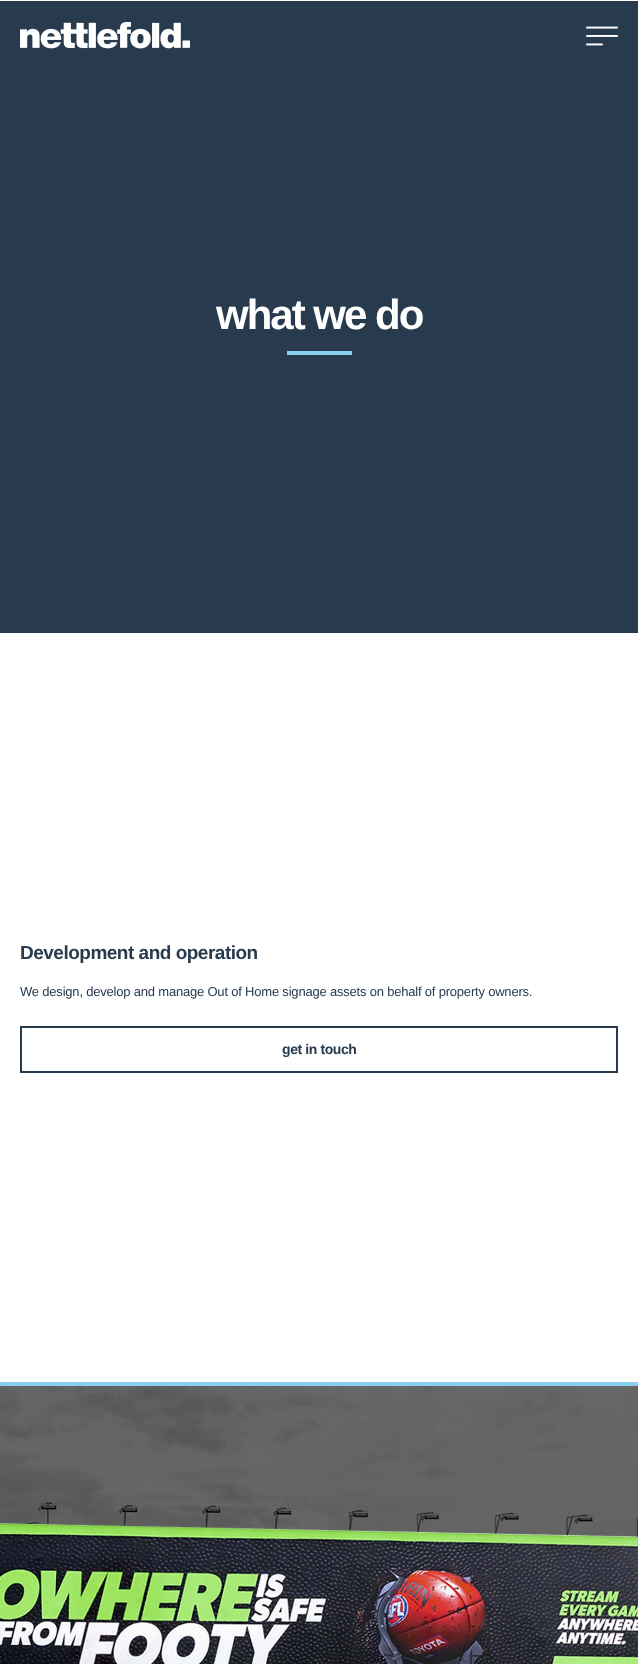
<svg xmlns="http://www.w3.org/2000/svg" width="638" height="1664">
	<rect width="100%" height="100%" fill="#FFFFFF" />
	<rect x="0" y="1" width="638" height="632" fill="#283A4E" />
	<image x="20" y="22" width="170" height="27" href="assets/img1.png" />
	<image x="586" y="26" width="32" height="20" href="assets/img2.png" />
	<text x="216" y="329" font-family="Liberation Sans" font-size="42" font-weight="700" letter-spacing="-2" fill="#FFFFFF">what we do</text>
	<rect x="287" y="351" width="65" height="4" fill="#89CFF0" />
	<text x="20" y="959" font-family="Liberation Sans" font-size="19" font-weight="700" letter-spacing="-0.5" fill="#283A4E">Development and operation</text>
	<text x="20" y="996" font-family="Liberation Sans" font-size="13" letter-spacing="-0.2" fill="#283A4E">We design, develop and manage Out of Home signage assets on behalf of property owners.</text>
	<rect x="21" y="1027" width="596" height="45" fill="none" stroke="#283A4E" stroke-width="2" />
	<text x="282" y="1054" font-family="Liberation Sans" font-size="14" font-weight="700" letter-spacing="-0.4" fill="#283A4E">get in touch</text>
	<image x="0" y="1386" width="638" height="278" href="assets/img3.png" />
	<rect x="0" y="1382" width="638" height="4" fill="#89CFF0" />
</svg>
